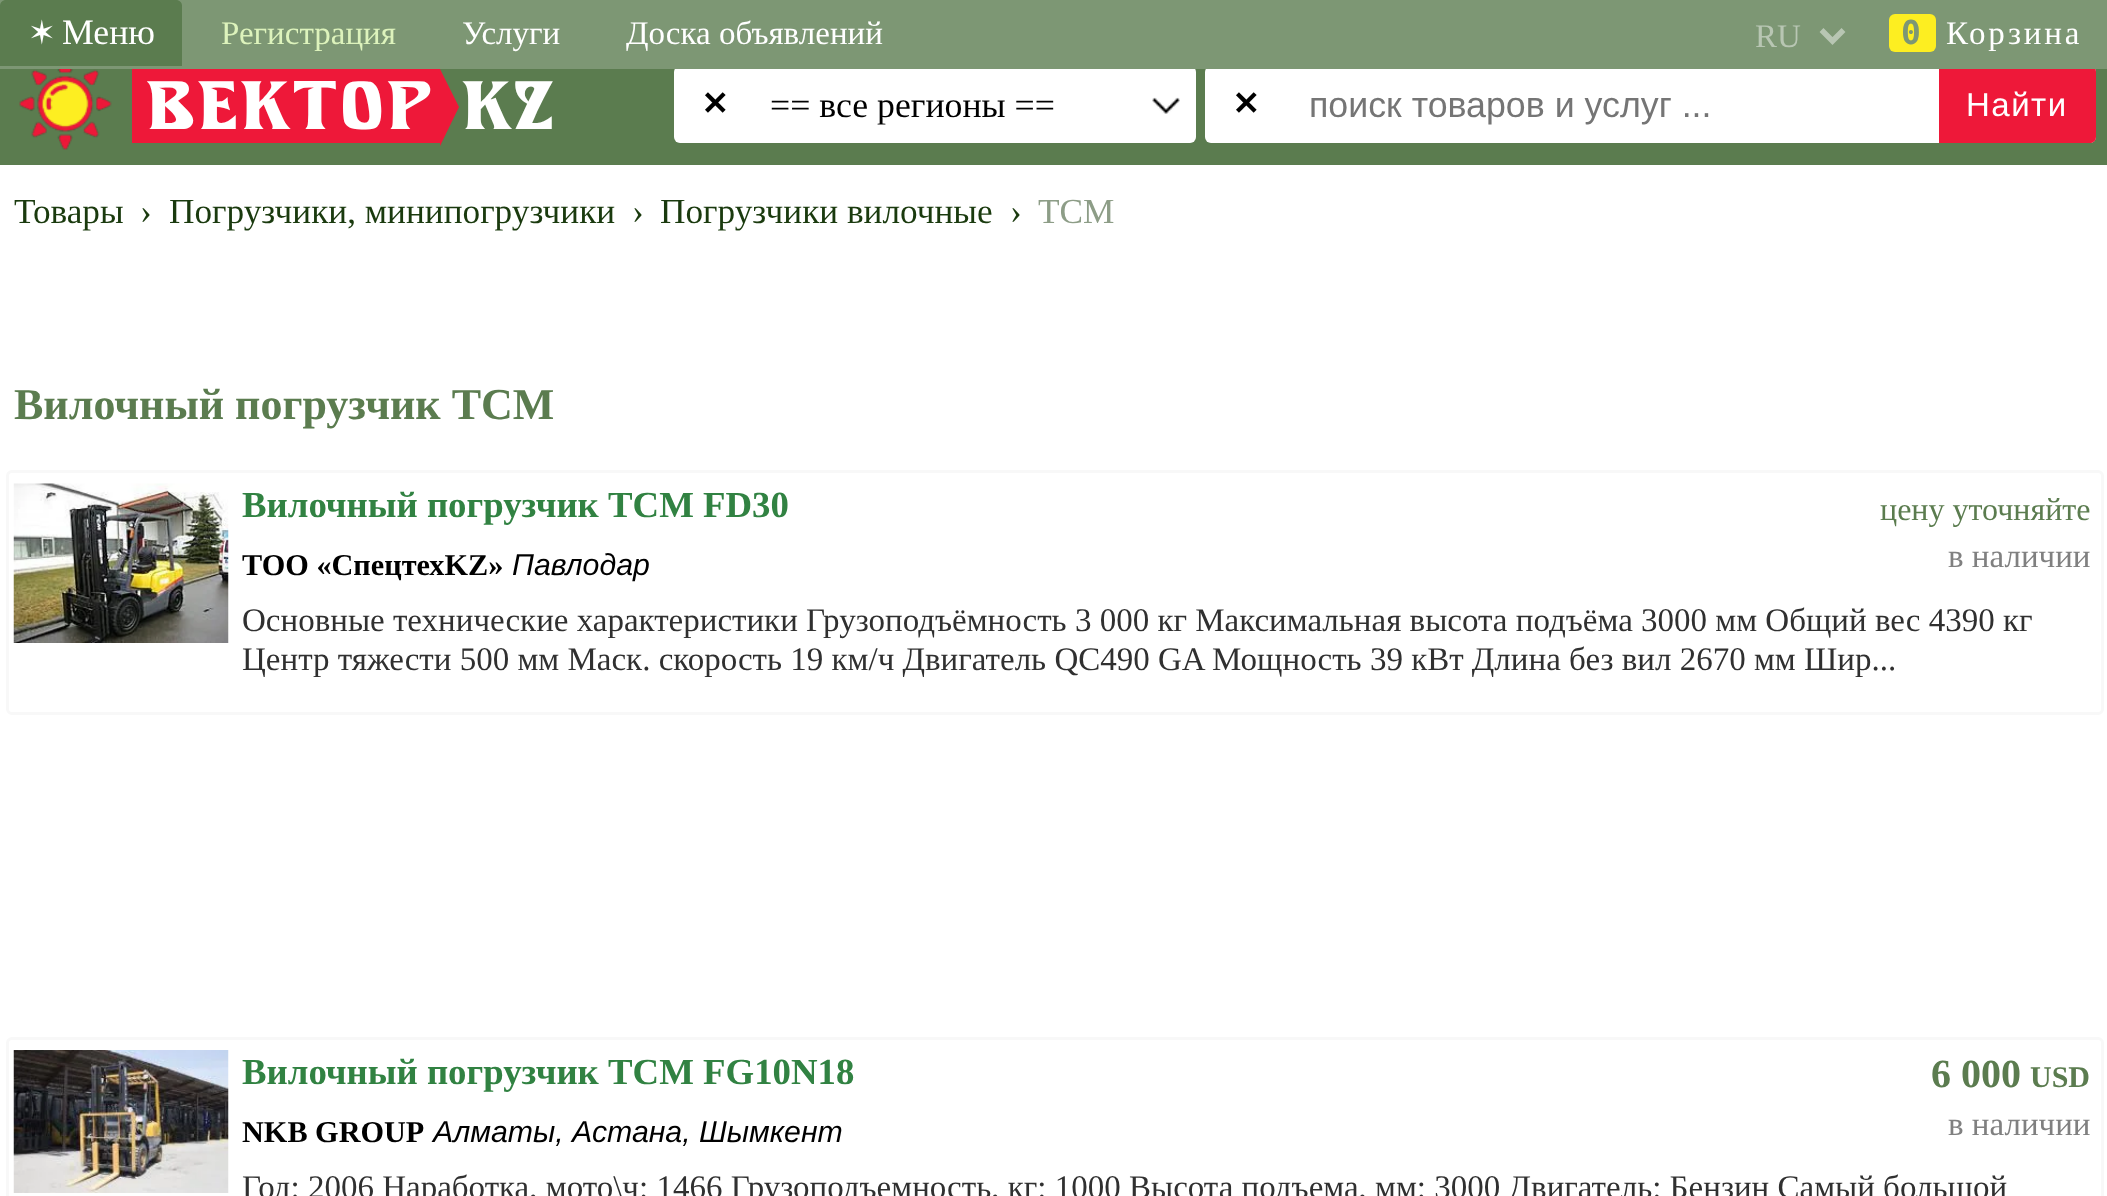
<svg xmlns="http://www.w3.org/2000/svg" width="2107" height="1196">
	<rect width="100%" height="100%" fill="#FFFFFF" />
	<rect x="0" y="69" width="2107" height="96" fill="#5B7C4F" />
	<rect x="674" y="66" width="522" height="77" rx="6" fill="#FFFFFF" />
	<rect x="1205" y="66" width="891" height="77" rx="6" fill="#FFFFFF" />
	<path d="M1939 66H2090C2093.5 66 2096 68.5 2096 72V137C2096 140.5 2093.5 143 2090 143H1939Z" fill="#EE1839" />
	<rect x="0" y="0" width="2107" height="69" fill="#7D9774" />
	<path d="M6 0H176C179.5 0 182 2.5 182 6V66H0V6C0 2.5 2.5 0 6 0Z" fill="#5B7C4F" />
	<text x="28" y="44" font-family="DejaVu Sans" font-size="33" fill="#FFFFFF">✶</text>
	<text x="62" y="44" font-family="Liberation Serif" font-size="35.75" fill="#FFFFFF">Меню</text>
	<text x="221" y="44" font-family="Liberation Serif" font-size="33" fill="#DDF3BC">Регистрация</text>
	<g font-family="Liberation Serif" font-size="33" fill="#FFFFFF">
		<text x="462" y="44">Услуги</text>
		<text x="626" y="44">Доска объявлений</text>
	</g>
	<path d="M1821.5 30L1832.5 41L1843.5 30" fill="none" stroke="#B8C6B3" stroke-width="5.5" />
	<text x="1755" y="47" font-family="Liberation Serif" font-size="33" fill="#B8C6B3">RU</text>
	<rect x="1889" y="14" width="47" height="38" rx="6" fill="#FDEE21" />
	<text x="1901" y="44" font-family="DejaVu Sans Mono" font-size="33" font-weight="700" letter-spacing="2.75" fill="#7D9774">0</text>
	<text x="1946" y="44" font-family="Liberation Serif" font-size="33" letter-spacing="2.75" fill="#FFFFFF">Корзина</text>
	<image x="19" y="69" width="93" height="81" href="assets/img1.png" />
	<rect x="132" y="69" width="308" height="74" fill="#EE1839" />
	<text x="146" y="129" font-family="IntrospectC" font-size="71.5" letter-spacing="2.75" fill="#FFFFFF">ВЕКТОР</text>
	<path d="M440 146V69L459 107Z" fill="#EE1839" />
	<text x="462" y="129" font-family="IntrospectC" font-size="71.5" letter-spacing="2.75" fill="#FFFFFF">KZ</text>
	<text x="701" y="115" font-family="DejaVu Sans" font-size="33" font-weight="700" fill="#000000">✕</text>
	<image x="1152" y="97" width="28" height="17" href="assets/img2.png" />
	<text x="770" y="117" font-family="Liberation Serif" font-size="35.75" fill="#000000">== все регионы ==</text>
	<text x="1232" y="115" font-family="DejaVu Sans" font-size="33" font-weight="700" fill="#000000">✕</text>
	<text x="1309" y="117" font-family="Liberation Sans" font-size="35.75" fill="#757575">поиск товаров и услуг ...</text>
	<text x="1966" y="116" font-family="Liberation Sans" font-size="33" letter-spacing="1.5" fill="#FFFFFF">Найти</text>
	<g font-family="Liberation Serif" font-size="35.25" fill="#1A3A0E">
		<text x="14" y="223">Товары</text>
		<text x="140" y="223">›</text>
		<text x="169" y="223">Погрузчики, минипогрузчики</text>
		<text x="632" y="223">›</text>
		<text x="660" y="223">Погрузчики вилочные</text>
		<text x="1010" y="223">›</text>
	</g>
	<text x="1038" y="223" font-family="Liberation Serif" font-size="35.25" fill="#8D9D87">TCM</text>
	<text x="14" y="419" font-family="Liberation Serif" font-size="44" font-weight="700" fill="#5B7C4F">Вилочный погрузчик TCM</text>
	<rect x="7.5" y="471.5" width="2095" height="242" rx="4.5" fill="none" stroke="#F8F8F8" stroke-width="3" />
	<image x="13" y="483" width="216" height="160" href="assets/img3.png" />
	<text x="242" y="517" font-family="Liberation Serif" font-size="36.8" font-weight="700" fill="#318242">Вилочный погрузчик ТСМ FD30</text>
	<text x="1880" y="520" font-family="Liberation Serif" font-size="32" fill="#5B7C4F">цену уточняйте</text>
	<text x="1948" y="567" font-family="Liberation Serif" font-size="33" fill="#808080">в наличии</text>
	<text x="242" y="575" font-family="Liberation Serif" font-size="30.25" font-weight="700" fill="#000000">ТОО «СпецтехKZ»</text>
	<text x="512" y="575" font-family="Liberation Sans" font-size="30.25" font-style="italic" fill="#000000">Павлодар</text>
	<g font-family="Liberation Serif" font-size="33" fill="#303030">
		<text x="242" y="631">Основные технические характеристики Грузоподъёмность 3 000 кг Максимальная высота подъёма 3000 мм Общий вес 4390 кг</text>
		<text x="242" y="670">Центр тяжести 500 мм Маск. скорость 19 км/ч Двигатель QC490 GA Мощность 39 кВт Длина без вил 2670 мм Шир...</text>
	</g>
	<rect x="7.5" y="1038.5" width="2095" height="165" rx="4.5" fill="none" stroke="#F8F8F8" stroke-width="3" />
	<image x="13" y="1050" width="216" height="143" href="assets/img4.png" />
	<text x="242" y="1084" font-family="Liberation Serif" font-size="36.8" font-weight="700" fill="#318242">Вилочный погрузчик TCM FG10N18</text>
	<text x="1931" y="1087" font-family="Liberation Serif" font-size="40" font-weight="700" fill="#5B7C4F">6 000</text>
	<text x="2030" y="1087" font-family="Liberation Serif" font-size="30" font-weight="700" fill="#5B7C4F">USD</text>
	<text x="1948" y="1135" font-family="Liberation Serif" font-size="33" fill="#808080">в наличии</text>
	<text x="242" y="1142" font-family="Liberation Serif" font-size="30.25" font-weight="700" fill="#000000">NKB GROUP</text>
	<text x="433" y="1142" font-family="Liberation Sans" font-size="30.25" font-style="italic" fill="#000000">Алматы, Астана, Шымкент</text>
	<text x="242" y="1198" font-family="Liberation Serif" font-size="33" fill="#303030">Год: 2006 Наработка, мото\ч: 1466 Грузоподъемность, кг: 1000 Высота подъема, мм: 3000 Двигатель: Бензин Самый большой</text>
</svg>
